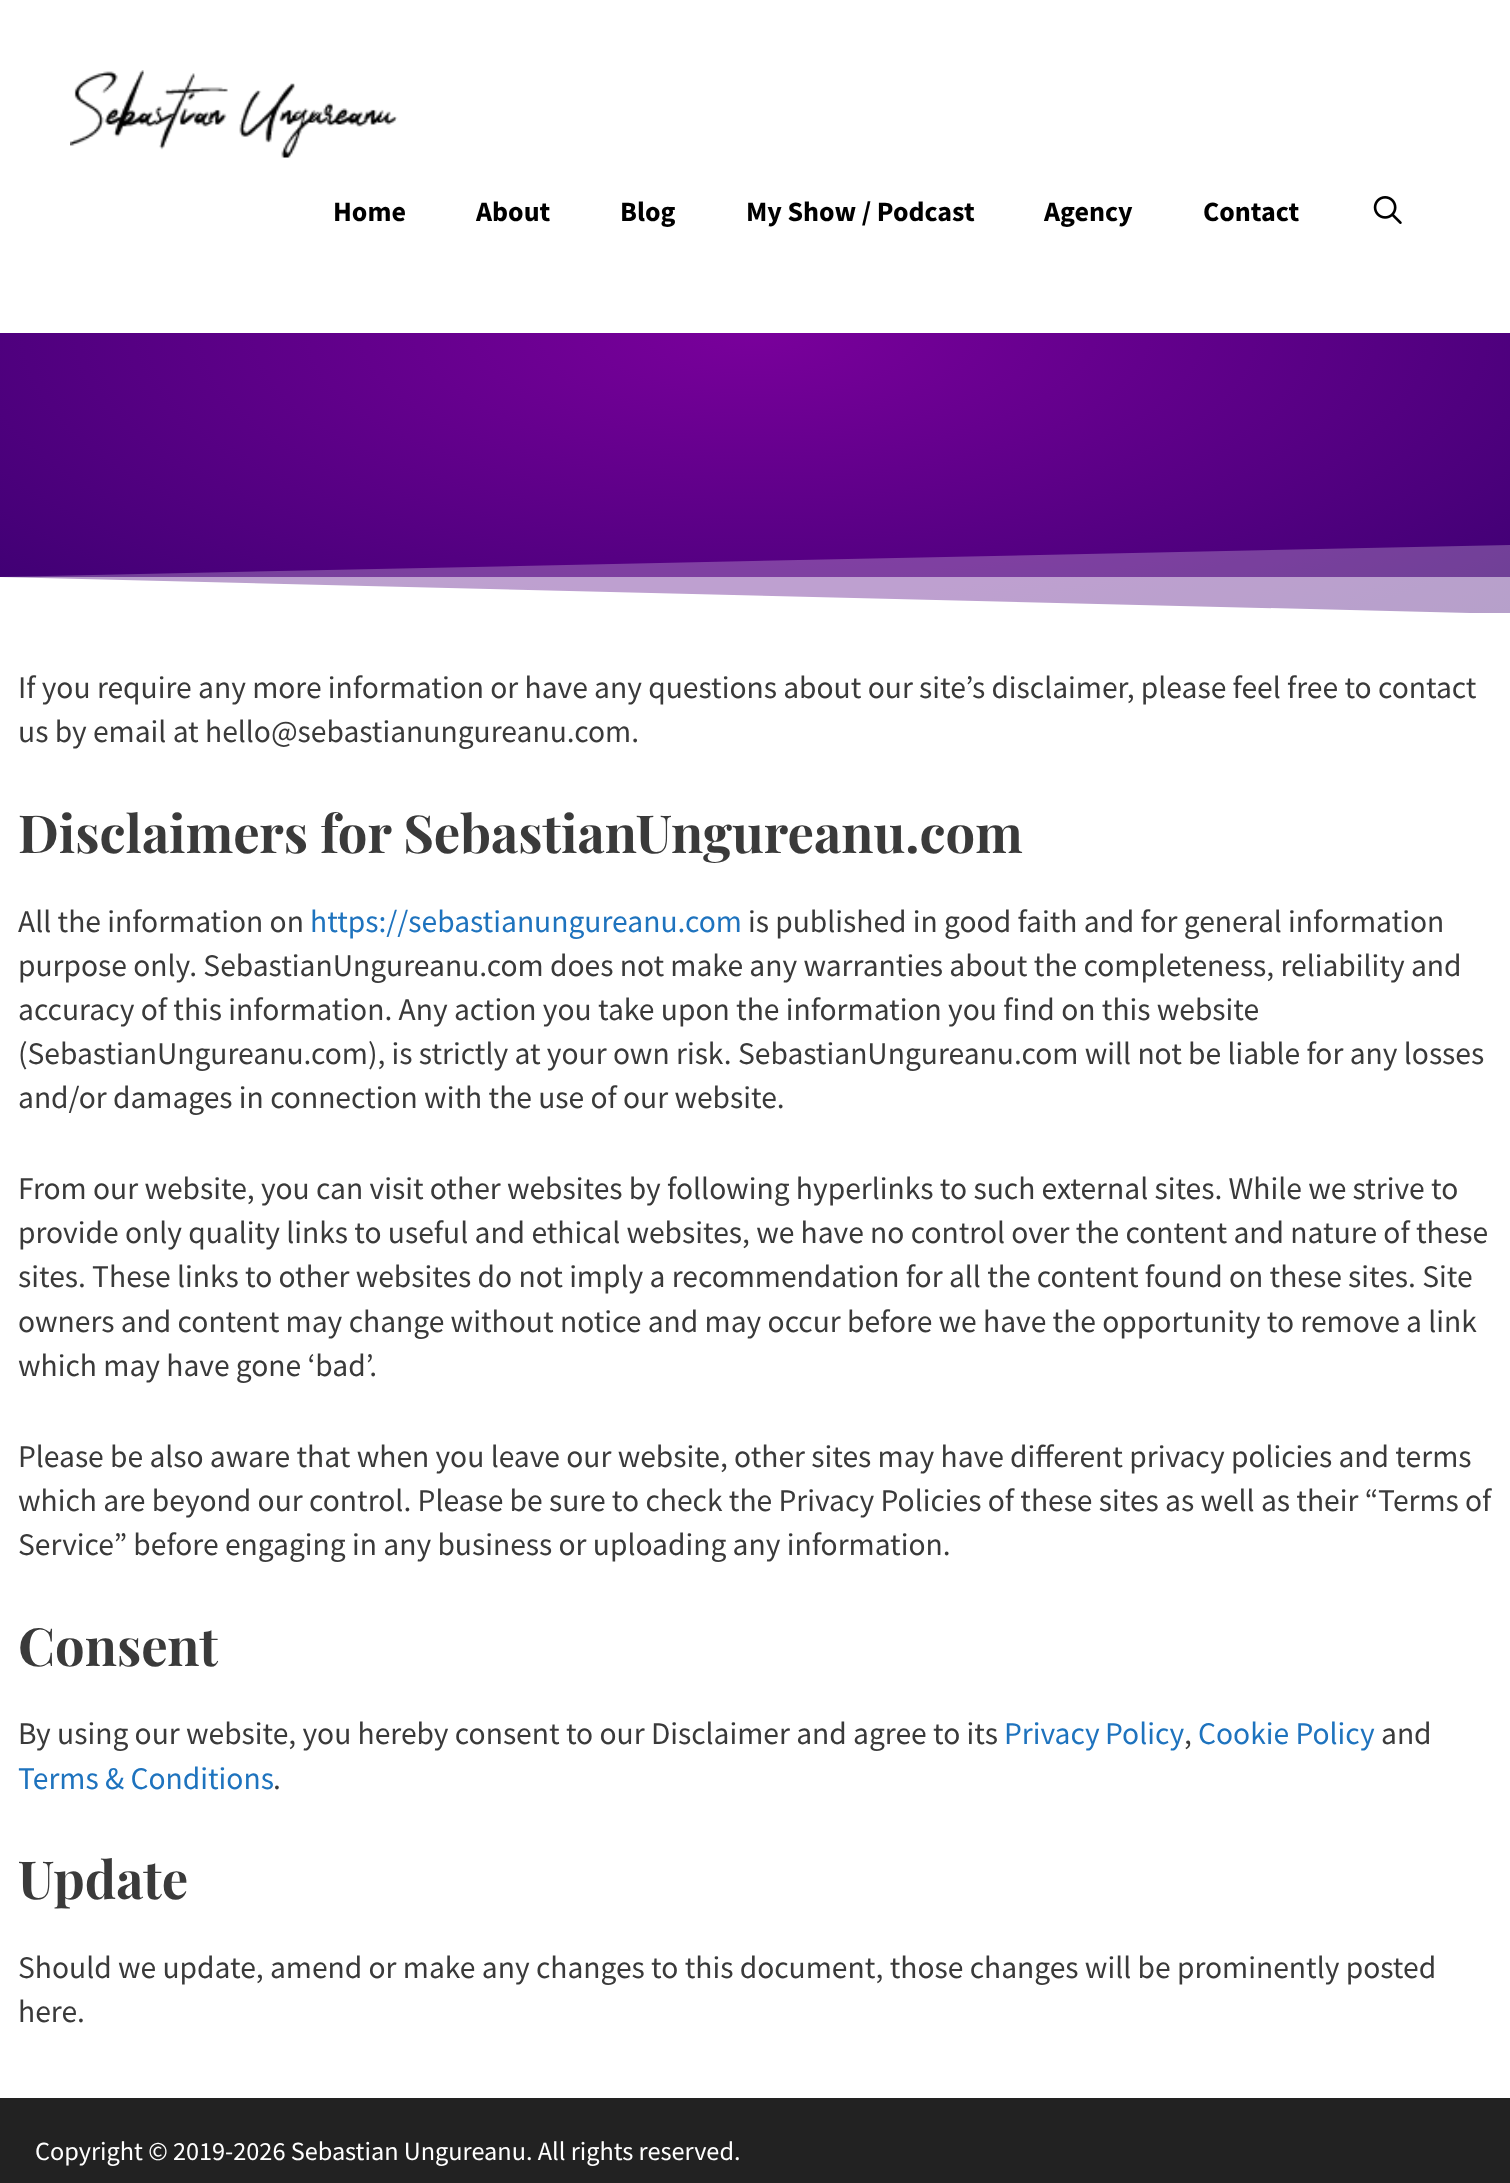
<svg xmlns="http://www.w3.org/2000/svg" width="1510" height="2183">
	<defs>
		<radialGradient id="g1" gradientUnits="userSpaceOnUse" cx="0" cy="0" r="1" gradientTransform="matrix(1068 0 0 396 755 333)"><stop offset="0" stop-color="#79009B" /><stop offset="1" stop-color="#3D0072" /></radialGradient>
		<radialGradient id="g2" gradientUnits="userSpaceOnUse" cx="0" cy="0" r="1" gradientTransform="matrix(1068 0 0 396 755 333)"><stop offset="0" stop-color="#BC80CD" /><stop offset="1" stop-color="#9E80B9" /></radialGradient>
	</defs>
	<rect width="100%" height="100%" fill="#FFFFFF" />
	<image x="70" y="70" width="328" height="88" href="assets/img1.png" />
	<g font-family="Source Sans Pro" font-size="28" font-weight="700" fill="#000000">
		<text x="333" y="221">Home</text>
		<text x="476" y="221">About</text>
		<text x="620" y="221">Blog</text>
		<text x="746" y="221">My Show / Podcast</text>
		<text x="1044" y="221">Agency</text>
		<text x="1203" y="221">Contact</text>
	</g>
	<image x="1373" y="196" width="29" height="28" href="assets/img2.png" />
	<rect x="0" y="333" width="1510" height="244" fill="url(#g1)" />
	<rect x="0" y="577" width="1510" height="36" fill="url(#g2)" />
	<path d="M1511 614H-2V577Z" fill="#FFFFFF" />
	<path d="M-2 614H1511V545L-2 577Z" fill="#FFFFFF" fill-opacity="0.25" />
	<g font-family="Source Sans Pro" font-size="31.5" fill="#3A3A3A">
		<text x="18" y="698">If you require any more information or have any questions about our site’s disclaimer, please feel free to contact</text>
		<text x="18" y="742">us by email at hello@sebastianungureanu.com.</text>
	</g>
	<text x="18" y="853" font-family="Playfair Display" font-size="52.5" font-weight="700" fill="#3A3A3A">Disclaimers for SebastianUngureanu.com</text>
	<text x="18" y="932" font-family="Source Sans Pro" font-size="31.5" fill="#3A3A3A">All the information on</text>
	<text x="310" y="932" font-family="Source Sans Pro" font-size="31.5" fill="#1E73BE">https://sebastianungureanu.com</text>
	<g font-family="Source Sans Pro" font-size="31.5" fill="#3A3A3A">
		<text x="748" y="932">is published in good faith and for general information</text>
		<text x="18" y="976">purpose only. SebastianUngureanu.com does not make any warranties about the completeness, reliability and</text>
		<text x="18" y="1020">accuracy of this information. Any action you take upon the information you find on this website</text>
		<text x="18" y="1064">(SebastianUngureanu.com), is strictly at your own risk. SebastianUngureanu.com will not be liable for any losses</text>
		<text x="18" y="1108">and/or damages in connection with the use of our website.</text>
		<text x="18" y="1199">From our website, you can visit other websites by following hyperlinks to such external sites. While we strive to</text>
		<text x="18" y="1243">provide only quality links to useful and ethical websites, we have no control over the content and nature of these</text>
		<text x="18" y="1287">sites. These links to other websites do not imply a recommendation for all the content found on these sites. Site</text>
		<text x="18" y="1332">owners and content may change without notice and may occur before we have the opportunity to remove a link</text>
		<text x="18" y="1376">which may have gone ‘bad’.</text>
		<text x="18" y="1467">Please be also aware that when you leave our website, other sites may have different privacy policies and terms</text>
		<text x="18" y="1511">which are beyond our control. Please be sure to check the Privacy Policies of these sites as well as their “Terms of</text>
		<text x="18" y="1555">Service” before engaging in any business or uploading any information.</text>
	</g>
	<text x="18" y="1666" font-family="Playfair Display" font-size="52.5" font-weight="700" fill="#3A3A3A">Consent</text>
	<text x="18" y="1744" font-family="Source Sans Pro" font-size="31.5" fill="#3A3A3A">By using our website, you hereby consent to our Disclaimer and agree to its</text>
	<text x="1004" y="1744" word-spacing="-1" font-family="Source Sans Pro" font-size="31.5" fill="#1E73BE">Privacy Policy</text>
	<text x="1184" y="1744" font-family="Source Sans Pro" font-size="31.5" fill="#3A3A3A">,</text>
	<text x="1198" y="1744" font-family="Source Sans Pro" font-size="31.5" fill="#1E73BE">Cookie Policy</text>
	<text x="1381" y="1744" font-family="Source Sans Pro" font-size="31.5" fill="#3A3A3A">and</text>
	<text x="18" y="1789" font-family="Source Sans Pro" font-size="31.5" fill="#1E73BE">Terms &amp; Conditions</text>
	<text x="273" y="1789" font-family="Source Sans Pro" font-size="31.5" fill="#3A3A3A">.</text>
	<text x="18" y="1899" font-family="Playfair Display" font-size="52.5" font-weight="700" fill="#3A3A3A">Update</text>
	<g font-family="Source Sans Pro" font-size="31.5" fill="#3A3A3A">
		<text x="18" y="1978">Should we update, amend or make any changes to this document, those changes will be prominently posted</text>
		<text x="18" y="2022">here.</text>
	</g>
	<rect x="0" y="2098" width="1510" height="85" fill="#222222" />
	<text x="35" y="2160" font-family="Source Sans Pro" font-size="26.25" fill="#FFFFFF">Copyright © 2019-2026 Sebastian Ungureanu. All rights reserved.</text>
</svg>
